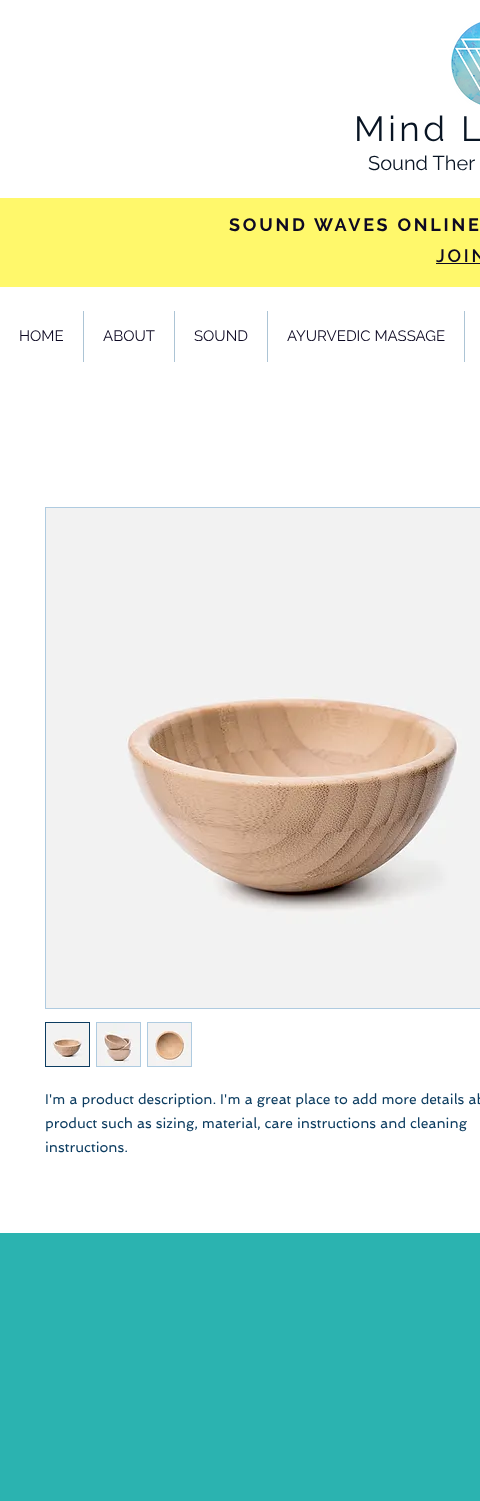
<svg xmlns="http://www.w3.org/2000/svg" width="480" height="1501">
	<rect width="100%" height="100%" fill="#FFFFFF" />
	<image x="451" y="22" width="29" height="83" href="assets/img1.png" />
	<text x="354" y="141" font-family="Raleway" font-size="35" letter-spacing="3.5" fill="#081423">Mind L</text>
	<text x="368" y="170" font-family="Raleway" font-size="20" fill="#081423">Sound Ther</text>
	<rect x="0" y="198" width="480" height="89" fill="#FFF86B" />
	<text x="229" y="231" font-family="Raleway" font-size="18" font-weight="700" letter-spacing="2.75" fill="#0D0923">SOUND WAVES ONLINE</text>
	<text x="436" y="262" font-family="Raleway" font-size="18" font-weight="600" letter-spacing="2.75" fill="#0D0923">JOIN</text>
	<rect x="436" y="263" width="44" height="1" fill="#0D0923" />
	<text x="19" y="341" font-family="Raleway" font-size="15" fill="#0D0923">HOME</text>
	<rect x="83" y="311" width="1" height="51" fill="#ACC4D5" />
	<text x="103" y="341" font-family="Raleway" font-size="15" fill="#0D0923">ABOUT</text>
	<rect x="174" y="311" width="1" height="51" fill="#ACC4D5" />
	<text x="194" y="341" font-family="Raleway" font-size="15" fill="#0D0923">SOUND</text>
	<rect x="267" y="311" width="1" height="51" fill="#ACC4D5" />
	<text x="287" y="341" font-family="Raleway" font-size="15" fill="#0D0923">AYURVEDIC MASSAGE</text>
	<rect x="464" y="311" width="1" height="51" fill="#ACC4D5" />
	<rect x="45.5" y="507.5" width="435" height="501" fill="none" stroke="#AFCBE0" />
	<image x="46" y="508" width="434" height="500" href="assets/img2.png" />
	<rect x="45.5" y="1022.5" width="44" height="44" fill="none" stroke="#0C3C60" />
	<image x="46" y="1023" width="43" height="43" href="assets/img3.png" />
	<rect x="96" y="1022" width="45" height="45" fill="#AFCBE0" />
	<image x="97" y="1023" width="43" height="43" href="assets/img4.png" />
	<rect x="147" y="1022" width="45" height="45" fill="#AFCBE0" />
	<image x="148" y="1023" width="43" height="43" href="assets/img5.png" />
	<g font-family="Spinnaker" font-size="14" fill="#0C3C60">
		<text x="45" y="1104">I'm a product description. I'm a great place to add more details ab</text>
		<text x="45" y="1128">product such as sizing, material, care instructions and cleaning</text>
		<text x="45" y="1152">instructions.</text>
	</g>
	<rect x="0" y="1233" width="480" height="268" fill="#2BB3B0" />
</svg>
